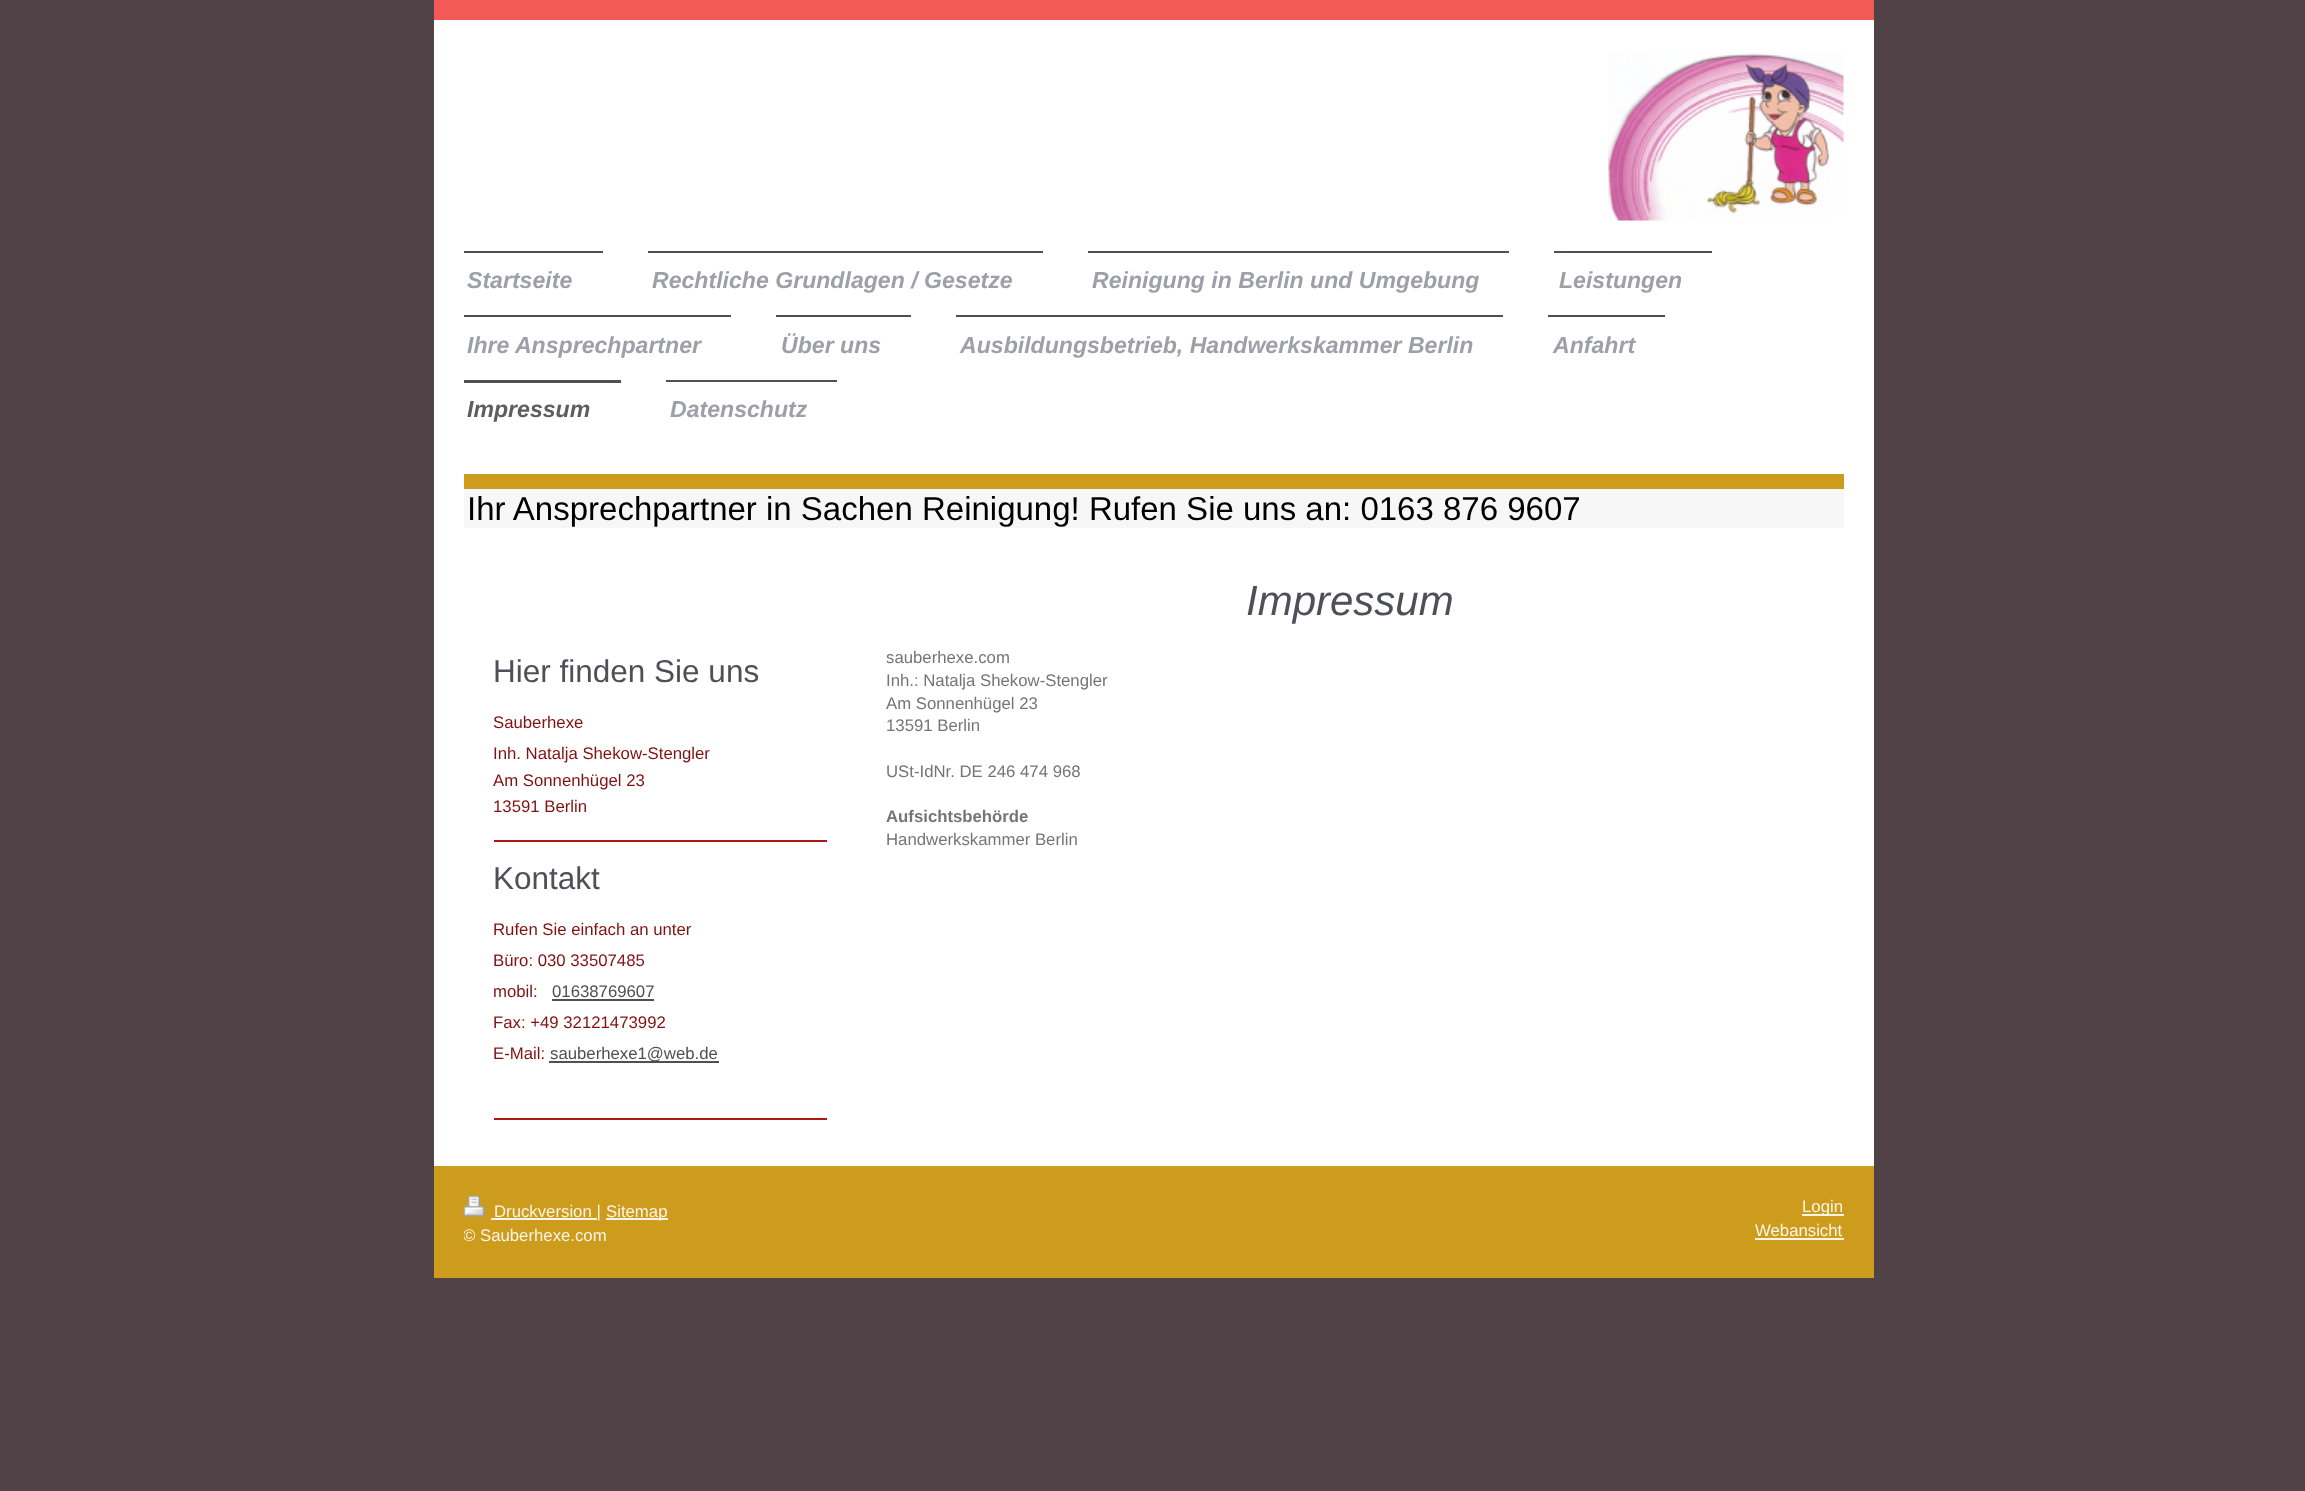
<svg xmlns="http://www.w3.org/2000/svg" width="2305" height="1491">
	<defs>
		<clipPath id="clip1"><rect x="464" y="1196" width="1380" height="52" /></clipPath>
	</defs>
	<rect width="100%" height="100%" fill="#504247" />
	<rect x="434" y="20" width="1440" height="1146" fill="#FFFFFF" />
	<rect x="434" y="0" width="1440" height="20" fill="#F25A58" />
	<image x="1608" y="52" width="236" height="169" href="assets/img1.png" />
	<rect x="464" y="251" width="139" height="2" fill="#4F4F58" />
	<text x="467" y="288" font-family="Liberation Sans" font-size="23.1" font-weight="700" font-style="italic" fill="#9F9FA8">Startseite</text>
	<rect x="648" y="251" width="395" height="2" fill="#4F4F58" />
	<text x="652" y="288" font-family="Liberation Sans" font-size="23.1" font-weight="700" font-style="italic" fill="#9F9FA8">Rechtliche Grundlagen / Gesetze</text>
	<rect x="1088" y="251" width="421" height="2" fill="#4F4F58" />
	<text x="1092" y="288" font-family="Liberation Sans" font-size="23.1" font-weight="700" font-style="italic" fill="#9F9FA8">Reinigung in Berlin und Umgebung</text>
	<rect x="1554" y="251" width="158" height="2" fill="#4F4F58" />
	<text x="1559" y="288" font-family="Liberation Sans" font-size="23.1" font-weight="700" font-style="italic" fill="#9F9FA8">Leistungen</text>
	<rect x="464" y="315" width="267" height="2" fill="#4F4F58" />
	<text x="467" y="353" font-family="Liberation Sans" font-size="23.1" font-weight="700" font-style="italic" fill="#9F9FA8">Ihre Ansprechpartner</text>
	<rect x="776" y="315" width="135" height="2" fill="#4F4F58" />
	<text x="781" y="353" font-family="Liberation Sans" font-size="23.1" font-weight="700" font-style="italic" fill="#9F9FA8">Über uns</text>
	<rect x="956" y="315" width="547" height="2" fill="#4F4F58" />
	<text x="960" y="353" font-family="Liberation Sans" font-size="23.1" font-weight="700" font-style="italic" fill="#9F9FA8">Ausbildungsbetrieb, Handwerkskammer Berlin</text>
	<rect x="1548" y="315" width="117" height="2" fill="#4F4F58" />
	<text x="1553" y="353" font-family="Liberation Sans" font-size="23.1" font-weight="700" font-style="italic" fill="#9F9FA8">Anfahrt</text>
	<rect x="464" y="380" width="157" height="3" fill="#4F4F58" />
	<text x="467" y="417" font-family="Liberation Sans" font-size="23.1" font-weight="700" font-style="italic" fill="#5E5E5E">Impressum</text>
	<rect x="666" y="380" width="171" height="2" fill="#4F4F58" />
	<text x="670" y="417" font-family="Liberation Sans" font-size="23.1" font-weight="700" font-style="italic" fill="#9F9FA8">Datenschutz</text>
	<rect x="464" y="474" width="1380" height="15" fill="#CE9C1C" />
	<rect x="464" y="489" width="1380" height="39" fill="#F7F7F7" />
	<text x="467" y="520" font-family="Liberation Sans" font-size="33" fill="#000000">Ihr Ansprechpartner in Sachen Reinigung! Rufen Sie uns an: 0163 876 9607</text>
	<text x="493" y="682" font-family="Liberation Sans" font-size="31.5" fill="#4F4F58">Hier finden Sie uns</text>
	<g font-family="Liberation Sans" font-size="16.75" fill="#811211">
		<text x="493" y="728">Sauberhexe</text>
		<text x="493" y="759">Inh. Natalja Shekow-Stengler</text>
		<text x="493" y="786">Am Sonnenhügel 23</text>
		<text x="493" y="812">13591 Berlin</text>
	</g>
	<rect x="494" y="840" width="333" height="2" fill="#AC1614" />
	<text x="493" y="889" font-family="Liberation Sans" font-size="31.5" fill="#4F4F58">Kontakt</text>
	<g font-family="Liberation Sans" font-size="16.75" fill="#811211">
		<text x="493" y="935">Rufen Sie einfach an unter</text>
		<text x="493" y="966">Büro: 030 33507485</text>
		<text x="493" y="997">mobil:</text>
	</g>
	<text x="552" y="997" font-family="Liberation Sans" font-size="16.75" fill="#4F4F58">01638769607</text>
	<rect x="552" y="999" width="102" height="2" fill="#4F4F58" />
	<g font-family="Liberation Sans" font-size="16.75" fill="#811211">
		<text x="493" y="1028">Fax: +49 32121473992</text>
		<text x="493" y="1059">E-Mail:</text>
	</g>
	<rect x="549" y="1061" width="170" height="2" fill="#4F4F58" />
	<text x="550" y="1059" font-family="Liberation Sans" font-size="16.75" fill="#4F4F58">sauberhexe1@web.de</text>
	<rect x="494" y="1118" width="333" height="2" fill="#AC1614" />
	<text x="1246" y="615" font-family="Liberation Sans" font-size="42" font-style="italic" fill="#4F4F58">Impressum</text>
	<g font-family="Liberation Sans" font-size="16.75" fill="#757575">
		<text x="886" y="663">sauberhexe.com</text>
		<text x="886" y="686">Inh.: Natalja Shekow-Stengler</text>
		<text x="886" y="709">Am Sonnenhügel 23</text>
		<text x="886" y="731">13591 Berlin</text>
		<text x="886" y="777">USt-IdNr. DE 246 474 968</text>
	</g>
	<text x="886" y="822" font-family="Liberation Sans" font-size="16.75" font-weight="700" fill="#757575">Aufsichtsbehörde</text>
	<text x="886" y="845" font-family="Liberation Sans" font-size="16.75" fill="#757575">Handwerkskammer Berlin</text>
	<rect x="434" y="1166" width="1440" height="112" fill="#CE9C1C" />
	<image x="463" y="1195" width="22" height="22" href="assets/img2.png" />
	<rect x="491" y="1218" width="106" height="2" fill="#FAF5E8" />
	<text x="494" y="1217" font-family="Liberation Sans" font-size="16.75" fill="#FAF5E8">Druckversion |</text>
	<rect x="606" y="1218" width="62" height="2" fill="#FAF5E8" />
	<text x="606" y="1217" font-family="Liberation Sans" font-size="16.75" fill="#FAF5E8">Sitemap</text>
	<g clip-path="url(#clip1)">
		<text x="463" y="1241" font-family="Liberation Sans" font-size="16.75" fill="#FAF5E8">© Sauberhexe.com</text>
	</g>
	<rect x="1802" y="1214" width="42" height="2" fill="#FAF5E8" />
	<g font-family="Liberation Sans" font-size="16.75" fill="#FAF5E8">
		<text x="1802" y="1212">Login</text>
		<text x="1755" y="1236">Webansicht</text>
	</g>
	<rect x="1755" y="1238" width="89" height="2" fill="#FAF5E8" />
</svg>
